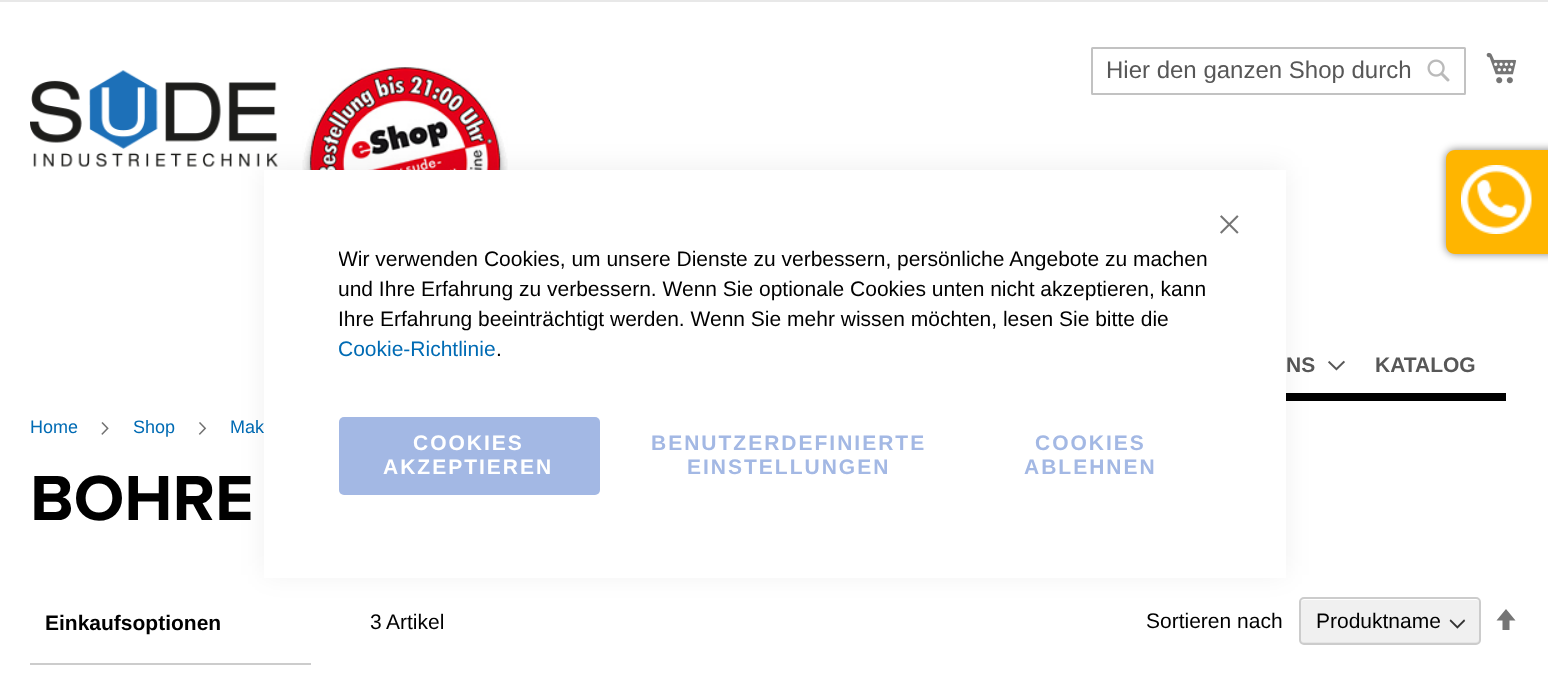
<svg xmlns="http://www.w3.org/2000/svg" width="1548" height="673">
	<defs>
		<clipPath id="clip1"><rect x="339" y="245" width="872" height="120" /></clipPath>
	</defs>
	<rect width="100%" height="100%" fill="#E8E8E8" />
	<rect x="0" y="2" width="1548" height="671" fill="#FFFFFF" />
	<image x="30" y="70" width="248" height="97" href="assets/img1.png" />
	<image x="302" y="67" width="206" height="103" href="assets/img2.png" />
	<rect x="1092" y="48" width="373" height="46" rx="0.5" fill="none" stroke="#C2C2C2" stroke-width="2" />
	<text x="1106" y="78" font-family="Liberation Sans" font-size="24" fill="#575757">Hier den ganzen Shop durch</text>
	<image x="1427" y="59" width="23" height="23" href="assets/img3.png" />
	<image x="1486" y="52" width="31" height="32" href="assets/img4.png" />
	<rect x="1446" y="150" width="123" height="104" rx="9" fill="#000000" fill-opacity="0.5" filter="blur(4px)" />
	<path d="M1455 150H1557V254H1455C1450 254 1446 250 1446 245V159C1446 154 1450 150 1455 150Z" fill="#FFB500" />
	<image x="1461" y="165" width="71" height="69" href="assets/img5.png" />
	<rect x="1286" y="393" width="220" height="8" fill="#000000" />
	<text x="1286" y="372" font-family="Liberation Sans" font-size="21" font-weight="700" fill="#575757">NS</text>
	<image x="1328" y="360" width="17" height="11" href="assets/img6.png" />
	<text x="1375" y="372" font-family="Liberation Sans" font-size="21" font-weight="700" fill="#575757">KATALOG</text>
	<text x="30" y="433" font-family="Liberation Sans" font-size="18" fill="#006BB4">Home</text>
	<image x="101" y="422" width="8" height="13" href="assets/img7.png" />
	<text x="133" y="433" font-family="Liberation Sans" font-size="18" fill="#006BB4">Shop</text>
	<image x="198" y="422" width="9" height="13" href="assets/img8.png" />
	<text x="230" y="433" font-family="Liberation Sans" font-size="18" fill="#006BB4">Mak</text>
	<text x="30" y="520" font-family="Proxima Nova" font-size="66" font-weight="700" fill="#000000">BOHRE</text>
	<rect x="30" y="663" width="281" height="2" fill="#CCCCCC" />
	<text x="45" y="630" font-family="Liberation Sans" font-size="21" font-weight="700" fill="#000000">Einkaufsoptionen</text>
	<g font-family="Liberation Sans" font-size="21" fill="#000000">
		<text x="370" y="629">3</text>
		<text x="386" y="629">Artikel</text>
		<text x="1146" y="628">Sortieren nach</text>
	</g>
	<rect x="1301" y="599" width="178" height="45" rx="3" fill="#F0F0F0" />
	<image x="1449" y="619" width="17" height="10" href="assets/img9.png" />
	<path d="M1301 641C1301 643 1302 644 1304 644H1476C1479 644 1479 641 1479 639C1479 641 1478 642 1476 642H1304C1303 642 1302 642 1301 641Z" fill="#CCCCCC" fill-opacity="0.3" />
	<path d="M1304 600H1476C1478 600 1479 601 1479 603C1479 601 1479 600 1477 599H1304C1303 599 1302 600 1301 601Z" fill="#FFFFFF" />
	<rect x="1300" y="598" width="180" height="46" rx="4" fill="none" stroke="#CCCCCC" stroke-width="2" />
	<text x="1316" y="628" font-family="Liberation Sans" font-size="21" fill="#000000">Produktname</text>
	<path d="M1506 609L1496.5 620.5H1502.5V630H1509.5V620.5H1515.5Z" fill="#757575" />
	<rect x="264" y="167" width="1022" height="408" fill="#000000" fill-opacity="0.06" filter="blur(13.5px)" />
	<rect x="264" y="170" width="1022" height="408" fill="#FFFFFF" />
	<image x="1220" y="215" width="19" height="19" href="assets/img10.png" />
	<g clip-path="url(#clip1)">
		<text x="338" y="266" font-family="Liberation Sans" font-size="21" fill="#000000">Wir verwenden Cookies, um unsere Dienste zu verbessern, persönliche Angebote zu machen</text>
	</g>
	<g font-family="Liberation Sans" font-size="21" fill="#000000">
		<text x="338" y="296">und Ihre Erfahrung zu verbessern. Wenn Sie optionale Cookies unten nicht akzeptieren, kann</text>
		<text x="338" y="326">Ihre Erfahrung beeinträchtigt werden. Wenn Sie mehr wissen möchten, lesen Sie bitte die</text>
	</g>
	<text x="338" y="356" font-family="Liberation Sans" font-size="21" fill="#006BB4">Cookie-Richtlinie</text>
	<text x="496" y="356" font-family="Liberation Sans" font-size="21" fill="#000000">.</text>
	<rect x="339" y="417" width="261" height="78" rx="5" fill="#A3B8E4" />
	<g font-family="Liberation Sans" font-size="21" font-weight="700" letter-spacing="2" fill="#FFFFFF">
		<text x="413" y="450">COOKIES</text>
		<text x="383" y="474">AKZEPTIEREN</text>
	</g>
	<g font-family="Liberation Sans" font-size="21" font-weight="700" letter-spacing="2" fill="#A3B8E4">
		<text x="651" y="450">BENUTZERDEFINIERTE</text>
		<text x="687" y="474">EINSTELLUNGEN</text>
		<text x="1035" y="450">COOKIES</text>
		<text x="1024" y="474">ABLEHNEN</text>
	</g>
</svg>
